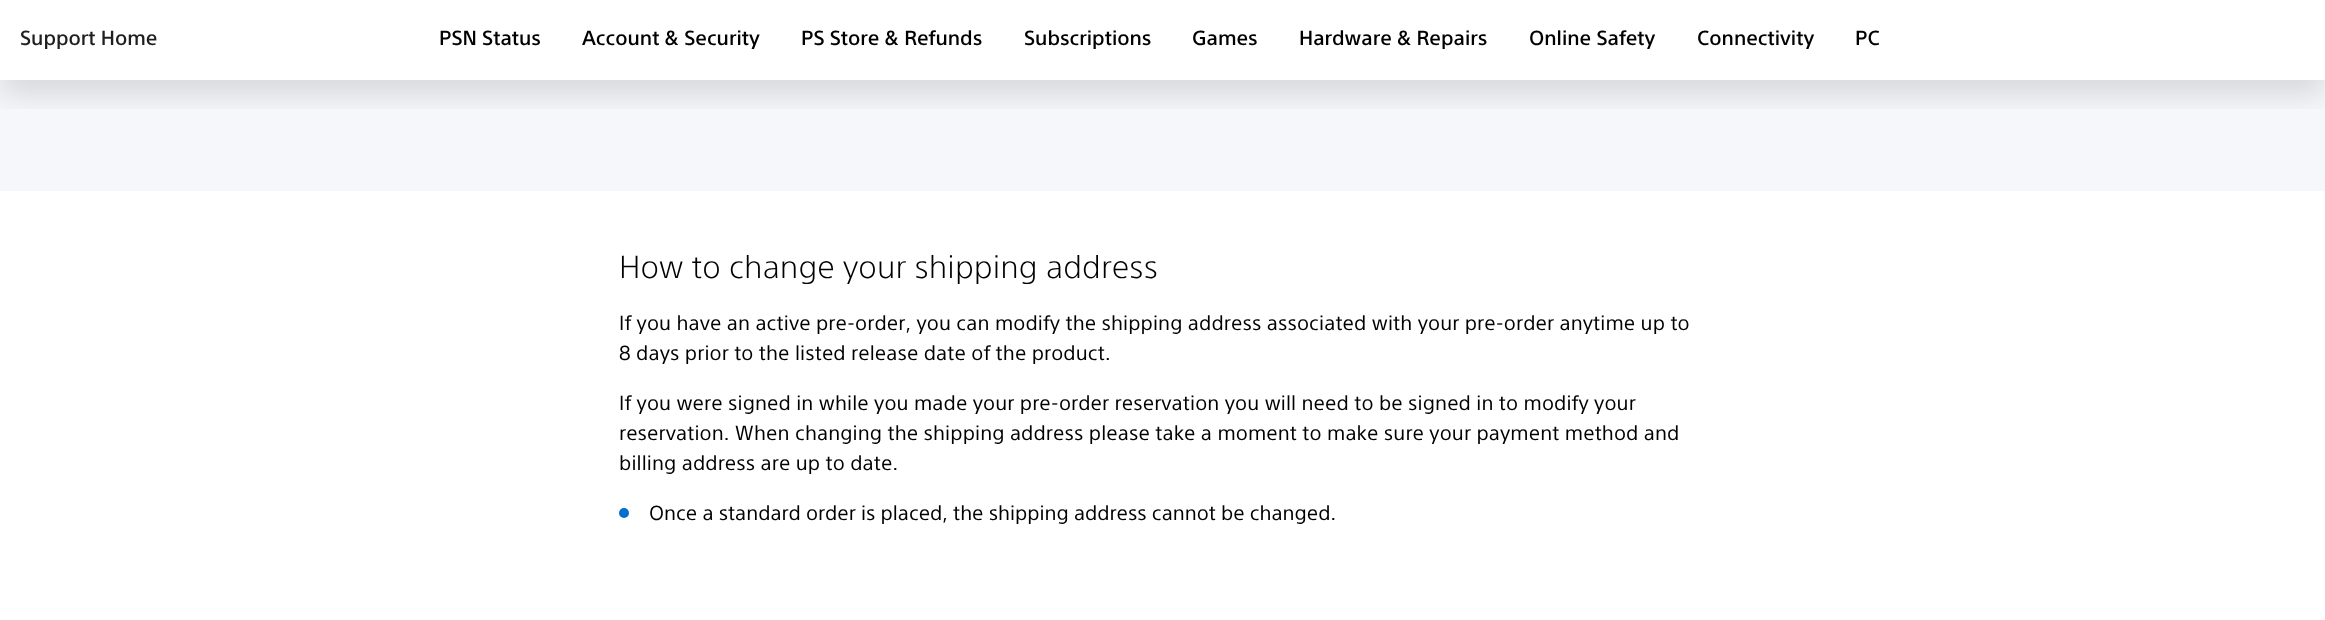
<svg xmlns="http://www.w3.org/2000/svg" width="2325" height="620">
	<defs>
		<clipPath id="clip1"><rect x="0" y="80" width="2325" height="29" /></clipPath>
	</defs>
	<rect width="100%" height="100%" fill="#FFFFFF" />
	<rect x="0" y="80" width="2325" height="111" fill="#F5F7FA" />
	<g clip-path="url(#clip1)">
		<rect x="0" y="15" width="2325" height="80" fill="#000000" fill-opacity="0.12" filter="blur(15px)" />
	</g>
	<text x="20" y="45" font-family="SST" font-size="20" font-weight="500" fill="#1F1F1F">Support Home</text>
	<g font-family="SST" font-size="20" font-weight="500" fill="#000000">
		<text x="439" y="45">PSN Status</text>
		<text x="582" y="45">Account &amp; Security</text>
		<text x="801" y="45">PS Store &amp; Refunds</text>
		<text x="1024" y="45">Subscriptions</text>
		<text x="1192" y="45">Games</text>
		<text x="1299" y="45">Hardware &amp; Repairs</text>
		<text x="1529" y="45">Online Safety</text>
		<text x="1697" y="45">Connectivity</text>
		<text x="1855" y="45">PC</text>
	</g>
	<text x="619" y="278" font-family="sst" font-size="31.25" font-weight="300" letter-spacing="0.12" fill="#000000">How to change your shipping address</text>
	<g font-family="sst" font-size="20" letter-spacing="0.12" fill="#000000">
		<text x="619" y="330">If you have an active pre-order, you can modify the shipping address associated with your pre-order anytime up to</text>
		<text x="619" y="360">8 days prior to the listed release date of the product.</text>
		<text x="619" y="410">If you were signed in while you made your pre-order reservation you will need to be signed in to modify your</text>
		<text x="619" y="440">reservation. When changing the shipping address please take a moment to make sure your payment method and</text>
		<text x="619" y="470">billing address are up to date.</text>
	</g>
	<circle cx="624" cy="513" r="5" fill="#0070CC" />
	<text x="649" y="520" font-family="sst" font-size="20" fill="#000000">Once a standard order is placed, the shipping address cannot be changed.</text>
</svg>
